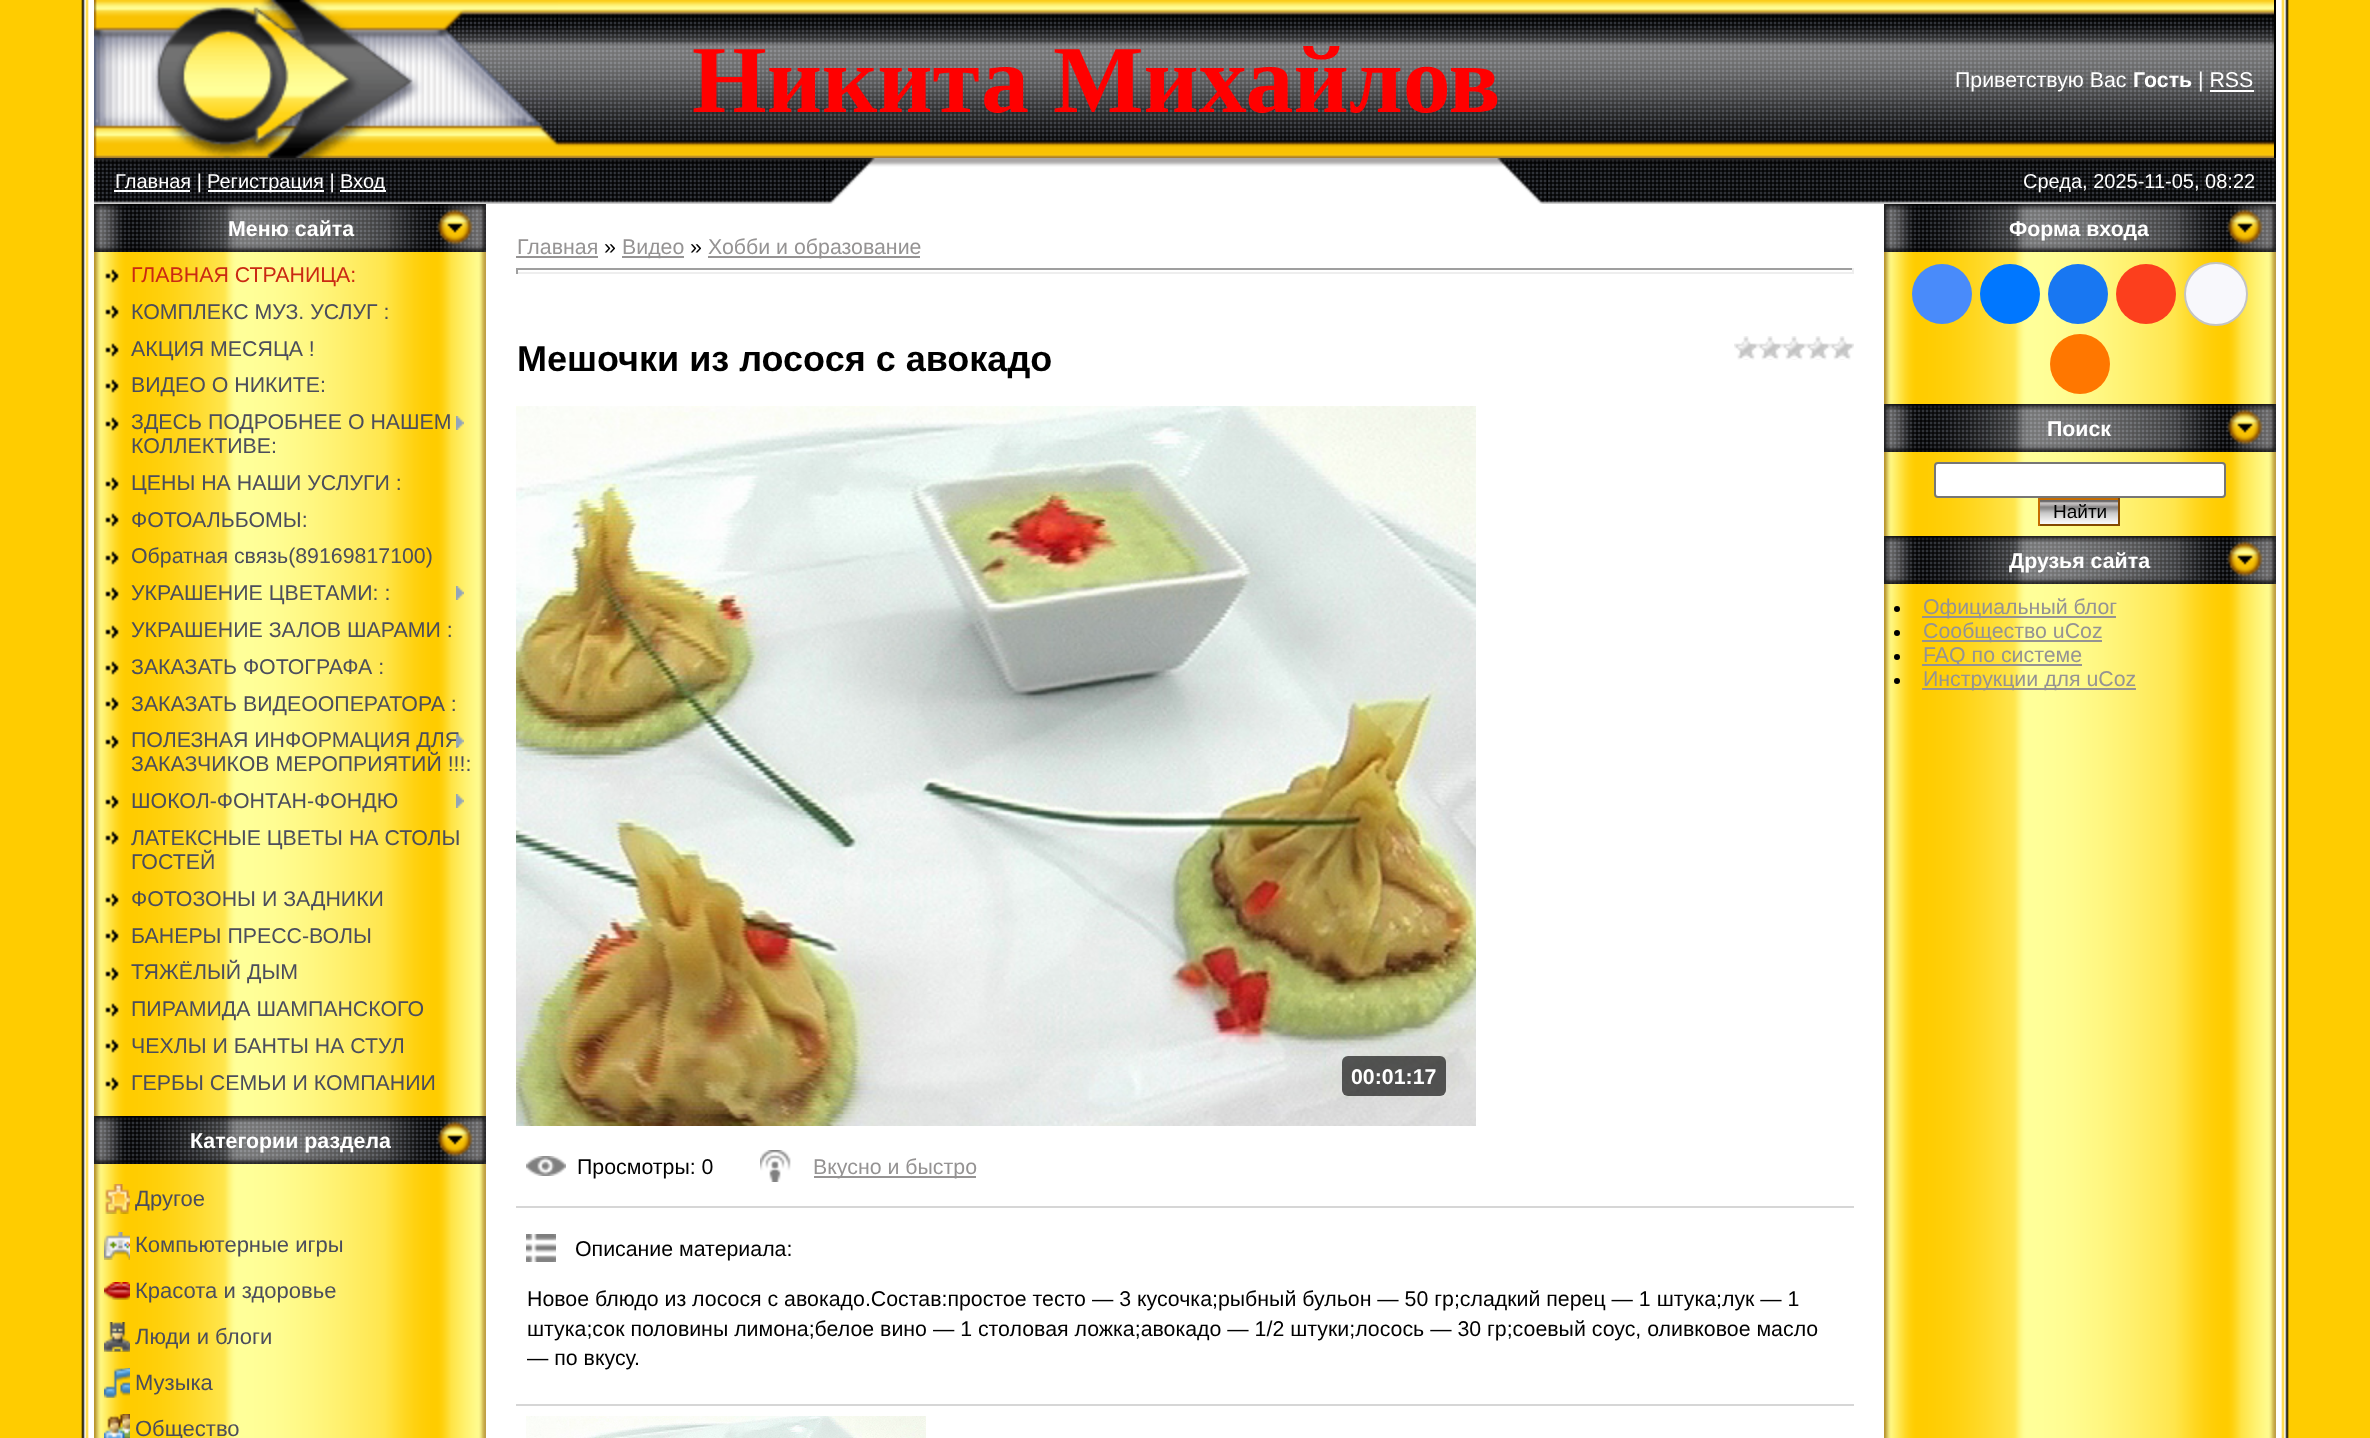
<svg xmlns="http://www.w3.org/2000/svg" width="2370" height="1438">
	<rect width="100%" height="100%" fill="#FFFFFF" />
	<rect x="0" y="0" width="81" height="1438" fill="#FFCC00" />
	<image x="81" y="0" width="13" height="1438" href="assets/img1.png" />
	<image x="558" y="0" width="1716" height="158" href="assets/img2.png" />
	<rect x="2274" y="0" width="2" height="158" fill="#000000" />
	<image x="94" y="0" width="464" height="158" href="assets/img3.png" />
	<text x="692" y="112" font-family="Liberation Serif" font-size="96" font-weight="700" fill="#FF0000">Никита Михайлов</text>
	<text x="1955" y="87" font-family="Liberation Sans" font-size="21.33" fill="#FFFFFF">Приветствую Вас</text>
	<text x="2133" y="87" font-family="Liberation Sans" font-size="21.33" font-weight="700" fill="#FFFFFF">Гость</text>
	<text x="2198" y="87" font-family="Liberation Sans" font-size="21.33" fill="#FFFFFF">| RSS</text>
	<rect x="2210" y="90" width="44" height="2" fill="#FFFFFF" />
	<image x="875" y="158" width="622" height="9" href="assets/img4.png" />
	<image x="94" y="158" width="730" height="46" href="assets/img5.png" />
	<rect x="114" y="190" width="76" height="2" fill="#FFFFFF" />
	<text x="115" y="188" font-family="Liberation Sans" font-size="20" fill="#FFFFFF">Главная |</text>
	<rect x="208" y="190" width="116" height="2" fill="#FFFFFF" />
	<text x="207" y="188" font-family="Liberation Sans" font-size="20" fill="#FFFFFF">Регистрация |</text>
	<rect x="340" y="190" width="46" height="2" fill="#FFFFFF" />
	<text x="340" y="188" font-family="Liberation Sans" font-size="20" fill="#FFFFFF">Вход</text>
	<image x="824" y="158" width="51" height="46" href="assets/img6.png" />
	<image x="1497" y="158" width="51" height="46" href="assets/img7.png" />
	<image x="1548" y="158" width="728" height="46" href="assets/img8.png" />
	<text x="2023" y="188" font-family="Liberation Sans" font-size="20" fill="#FFFFFF">Среда, 2025-11-05, 08:22</text>
	<image x="94" y="252" width="392" height="1186" href="assets/img9.png" />
	<image x="94" y="204" width="392" height="48" href="assets/img10.png" />
	<text x="228" y="236" font-family="Liberation Sans" font-size="21.33" font-weight="700" fill="#FFFFFF">Меню сайта</text>
	<image x="105" y="269" width="14" height="14" href="assets/img11.png" />
	<text x="131" y="282" font-family="Liberation Sans" font-size="21.33" fill="#CA2913">ГЛАВНАЯ СТРАНИЦА:</text>
	<image x="105" y="305" width="14" height="14" href="assets/img11.png" />
	<text x="131" y="319" font-family="Liberation Sans" font-size="21.33" fill="#4B4D5C">КОМПЛЕКС МУЗ. УСЛУГ :</text>
	<image x="105" y="343" width="14" height="14" href="assets/img11.png" />
	<text x="131" y="356" font-family="Liberation Sans" font-size="21.33" fill="#4B4D5C">АКЦИЯ МЕСЯЦА !</text>
	<image x="105" y="379" width="14" height="14" href="assets/img11.png" />
	<text x="131" y="392" font-family="Liberation Sans" font-size="21.33" fill="#4B4D5C">ВИДЕО О НИКИТЕ:</text>
	<image x="105" y="417" width="14" height="14" href="assets/img11.png" />
	<text x="131" y="429" font-family="Liberation Sans" font-size="21.33" fill="#4B4D5C">ЗДЕСЬ ПОДРОБНЕЕ О НАШЕМ</text>
	<image x="456" y="416" width="8" height="14" href="assets/img12.png" />
	<text x="131" y="453" font-family="Liberation Sans" font-size="21.33" fill="#4B4D5C">КОЛЛЕКТИВЕ:</text>
	<image x="105" y="477" width="14" height="14" href="assets/img11.png" />
	<text x="131" y="490" font-family="Liberation Sans" font-size="21.33" fill="#4B4D5C">ЦЕНЫ НА НАШИ УСЛУГИ :</text>
	<image x="105" y="513" width="14" height="14" href="assets/img11.png" />
	<text x="131" y="527" font-family="Liberation Sans" font-size="21.33" fill="#4B4D5C">ФОТОАЛЬБОМЫ:</text>
	<image x="105" y="551" width="14" height="14" href="assets/img11.png" />
	<text x="131" y="563" font-family="Liberation Sans" font-size="21.33" fill="#4B4D5C">Обратная связь(89169817100)</text>
	<image x="105" y="587" width="14" height="14" href="assets/img11.png" />
	<text x="131" y="600" font-family="Liberation Sans" font-size="21.33" fill="#4B4D5C">УКРАШЕНИЕ ЦВЕТАМИ: :</text>
	<image x="456" y="586" width="8" height="14" href="assets/img12.png" />
	<image x="105" y="625" width="14" height="14" href="assets/img11.png" />
	<text x="131" y="637" font-family="Liberation Sans" font-size="21.33" fill="#4B4D5C">УКРАШЕНИЕ ЗАЛОВ ШАРАМИ :</text>
	<image x="105" y="661" width="14" height="14" href="assets/img11.png" />
	<text x="131" y="674" font-family="Liberation Sans" font-size="21.33" fill="#4B4D5C">ЗАКАЗАТЬ ФОТОГРАФА :</text>
	<image x="105" y="697" width="14" height="14" href="assets/img11.png" />
	<text x="131" y="711" font-family="Liberation Sans" font-size="21.33" fill="#4B4D5C">ЗАКАЗАТЬ ВИДЕООПЕРАТОРА :</text>
	<image x="105" y="735" width="14" height="14" href="assets/img11.png" />
	<text x="131" y="747" font-family="Liberation Sans" font-size="21.33" fill="#4B4D5C">ПОЛЕЗНАЯ ИНФОРМАЦИЯ ДЛЯ</text>
	<image x="456" y="734" width="8" height="14" href="assets/img13.png" />
	<text x="131" y="771" font-family="Liberation Sans" font-size="21.33" fill="#4B4D5C">ЗАКАЗЧИКОВ МЕРОПРИЯТИЙ !!!:</text>
	<image x="105" y="795" width="14" height="14" href="assets/img11.png" />
	<text x="131" y="808" font-family="Liberation Sans" font-size="21.33" fill="#4B4D5C">ШОКОЛ-ФОНТАН-ФОНДЮ</text>
	<image x="456" y="794" width="8" height="14" href="assets/img12.png" />
	<image x="105" y="831" width="14" height="14" href="assets/img11.png" />
	<g font-family="Liberation Sans" font-size="21.33" fill="#4B4D5C">
		<text x="131" y="845">ЛАТЕКСНЫЕ ЦВЕТЫ НА СТОЛЫ</text>
		<text x="131" y="869">ГОСТЕЙ</text>
	</g>
	<image x="105" y="893" width="14" height="14" href="assets/img11.png" />
	<text x="131" y="906" font-family="Liberation Sans" font-size="21.33" fill="#4B4D5C">ФОТОЗОНЫ И ЗАДНИКИ</text>
	<image x="105" y="929" width="14" height="14" href="assets/img11.png" />
	<text x="131" y="943" font-family="Liberation Sans" font-size="21.33" fill="#4B4D5C">БАНЕРЫ ПРЕСС-ВОЛЫ</text>
	<image x="105" y="967" width="14" height="14" href="assets/img11.png" />
	<text x="131" y="979" font-family="Liberation Sans" font-size="21.33" fill="#4B4D5C">ТЯЖЁЛЫЙ ДЫМ</text>
	<image x="105" y="1003" width="14" height="14" href="assets/img11.png" />
	<text x="131" y="1016" font-family="Liberation Sans" font-size="21.33" fill="#4B4D5C">ПИРАМИДА ШАМПАНСКОГО</text>
	<image x="105" y="1039" width="14" height="14" href="assets/img11.png" />
	<text x="131" y="1053" font-family="Liberation Sans" font-size="21.33" fill="#4B4D5C">ЧЕХЛЫ И БАНТЫ НА СТУЛ</text>
	<image x="105" y="1077" width="14" height="14" href="assets/img11.png" />
	<text x="131" y="1090" font-family="Liberation Sans" font-size="21.33" fill="#4B4D5C">ГЕРБЫ СЕМЬИ И КОМПАНИИ</text>
	<image x="94" y="1116" width="392" height="48" href="assets/img10.png" />
	<text x="190" y="1148" font-family="Liberation Sans" font-size="21.33" font-weight="700" fill="#FFFFFF">Категории раздела</text>
	<image x="105" y="1184" width="25" height="30" href="assets/img14.png" />
	<text x="135" y="1206" font-family="Liberation Sans" font-size="22" fill="#4B4D5C">Другое</text>
	<image x="104" y="1232" width="26" height="28" href="assets/img15.png" />
	<text x="135" y="1252" font-family="Liberation Sans" font-size="22" fill="#4B4D5C">Компьютерные игры</text>
	<image x="104" y="1282" width="26" height="18" href="assets/img16.png" />
	<text x="135" y="1298" font-family="Liberation Sans" font-size="22" fill="#4B4D5C">Красота и здоровье</text>
	<image x="104" y="1322" width="26" height="30" href="assets/img17.png" />
	<text x="135" y="1344" font-family="Liberation Sans" font-size="22" fill="#4B4D5C">Люди и блоги</text>
	<image x="104" y="1368" width="26" height="30" href="assets/img18.png" />
	<text x="135" y="1390" font-family="Liberation Sans" font-size="22" fill="#4B4D5C">Музыка</text>
	<image x="104" y="1414" width="26" height="24" href="assets/img19.png" />
	<text x="135" y="1436" font-family="Liberation Sans" font-size="22" fill="#4B4D5C">Общество</text>
	<text x="517" y="254" font-family="Liberation Sans" font-size="21.33" fill="#959393">Главная</text>
	<rect x="516" y="256" width="82" height="2" fill="#959393" />
	<text x="604" y="254" font-family="Liberation Sans" font-size="21.33" fill="#000000">»</text>
	<rect x="622" y="256" width="62" height="2" fill="#959393" />
	<text x="622" y="254" font-family="Liberation Sans" font-size="21.33" fill="#959393">Видео</text>
	<text x="690" y="254" font-family="Liberation Sans" font-size="21.33" fill="#000000">»</text>
	<rect x="708" y="256" width="212" height="2" fill="#959393" />
	<text x="708" y="254" font-family="Liberation Sans" font-size="21.33" fill="#959393">Хобби и образование</text>
	<rect x="516" y="268" width="1338" height="2" fill="#9F9F9F" />
	<rect x="1852" y="268" width="2" height="6" fill="#EEEEEE" />
	<rect x="516" y="272" width="1338" height="2" fill="#EEEEEE" />
	<rect x="516" y="268" width="2" height="6" fill="#9F9F9F" />
	<text x="517" y="371" font-family="Liberation Sans" font-size="36" font-weight="700" fill="#000000">Мешочки из лосося с авокадо</text>
	<image x="1734" y="336" width="120" height="24" href="assets/img20.png" />
	<image x="516" y="406" width="960" height="720" href="assets/img21.png" />
	<rect x="1342" y="1056" width="104" height="40" rx="6" fill="#000000" fill-opacity="0.63" />
	<text x="1351" y="1084" font-family="Liberation Sans" font-size="21.33" font-weight="700" fill="#FFFFFF">00:01:17</text>
	<image x="526" y="1156" width="40" height="20" href="assets/img22.png" />
	<text x="577" y="1174" font-family="Liberation Sans" font-size="21.33" fill="#000000">Просмотры: 0</text>
	<image x="760" y="1150" width="31" height="32" href="assets/img23.png" />
	<rect x="814" y="1176" width="162" height="2" fill="#959393" />
	<text x="813" y="1174" font-family="Liberation Sans" font-size="21.33" fill="#959393">Вкусно и быстро</text>
	<rect x="516" y="1206" width="1338" height="2" fill="#D6D6D6" />
	<image x="526" y="1234" width="30" height="28" href="assets/img24.png" />
	<g font-family="Liberation Sans" font-size="21.33" fill="#000000">
		<text x="575" y="1256">Описание материала:</text>
		<text x="527" y="1306">Новое блюдо из лосося с авокадо.Состав:простое тесто — 3 кусочка;рыбный бульон — 50 гр;сладкий перец — 1 штука;лук — 1</text>
		<text x="527" y="1336">штука;сок половины лимона;белое вино — 1 столовая ложка;авокадо — 1/2 штуки;лосось — 30 гр;соевый соус, оливковое масло</text>
		<text x="527" y="1365">— по вкусу.</text>
	</g>
	<rect x="516" y="1404" width="1338" height="2" fill="#D6D6D6" />
	<image x="526" y="1416" width="400" height="22" href="assets/img25.png" />
	<image x="1884" y="252" width="392" height="1186" href="assets/img9.png" />
	<image x="1884" y="204" width="392" height="48" href="assets/img10.png" />
	<text x="2009" y="236" font-family="Liberation Sans" font-size="21.33" font-weight="700" fill="#FFFFFF">Форма входа</text>
	<circle cx="1942" cy="294" r="30" fill="#498BFA" />
	<circle cx="2010" cy="294" r="30" fill="#0077FF" />
	<circle cx="2078" cy="294" r="30" fill="#1877F2" />
	<circle cx="2146" cy="294" r="30" fill="#FC3F1D" />
	<circle cx="2216" cy="294" r="31" fill="#F8F8FC" stroke="#C4C4C4" stroke-width="2" />
	<circle cx="2080" cy="364" r="30" fill="#FF7700" />
	<image x="1884" y="404" width="392" height="48" href="assets/img10.png" />
	<text x="2047" y="436" font-family="Liberation Sans" font-size="21.33" font-weight="700" fill="#FFFFFF">Поиск</text>
	<rect x="1935" y="463" width="290" height="34" rx="3" fill="#FFFFFF" stroke="#767676" stroke-width="2" />
	<image x="2040" y="500" width="78" height="24" href="assets/img26.png" />
	<rect x="2038" y="498" width="82" height="2" fill="#C66D00" />
	<rect x="2118" y="498" width="2" height="28" fill="#844900" />
	<rect x="2038" y="524" width="82" height="2" fill="#844900" />
	<rect x="2038" y="498" width="2" height="28" fill="#C66D00" />
	<text x="2053" y="518" font-family="Liberation Sans" font-size="19" fill="#000000">Найти</text>
	<image x="1884" y="536" width="392" height="48" href="assets/img10.png" />
	<text x="2009" y="568" font-family="Liberation Sans" font-size="21.33" font-weight="700" fill="#FFFFFF">Друзья сайта</text>
	<circle cx="1897" cy="609" r="3" fill="#000000" />
	<rect x="1922" y="616" width="194" height="2" fill="#959393" />
	<text x="1923" y="614" font-family="Liberation Sans" font-size="21.33" fill="#959393">Официальный блог</text>
	<circle cx="1897" cy="633" r="3" fill="#000000" />
	<rect x="1922" y="640" width="180" height="2" fill="#959393" />
	<text x="1923" y="638" font-family="Liberation Sans" font-size="21.33" fill="#959393">Сообщество uCoz</text>
	<circle cx="1897" cy="657" r="3" fill="#000000" />
	<rect x="1922" y="664" width="160" height="2" fill="#959393" />
	<text x="1923" y="662" font-family="Liberation Sans" font-size="21.33" fill="#959393">FAQ по системе</text>
	<circle cx="1897" cy="681" r="3" fill="#000000" />
	<rect x="1922" y="688" width="214" height="2" fill="#959393" />
	<text x="1923" y="686" font-family="Liberation Sans" font-size="21.33" fill="#959393">Инструкции для uCoz</text>
	<rect x="2289" y="0" width="81" height="1438" fill="#FFCC00" />
	<image x="2276" y="0" width="13" height="1438" href="assets/img27.png" />
</svg>
